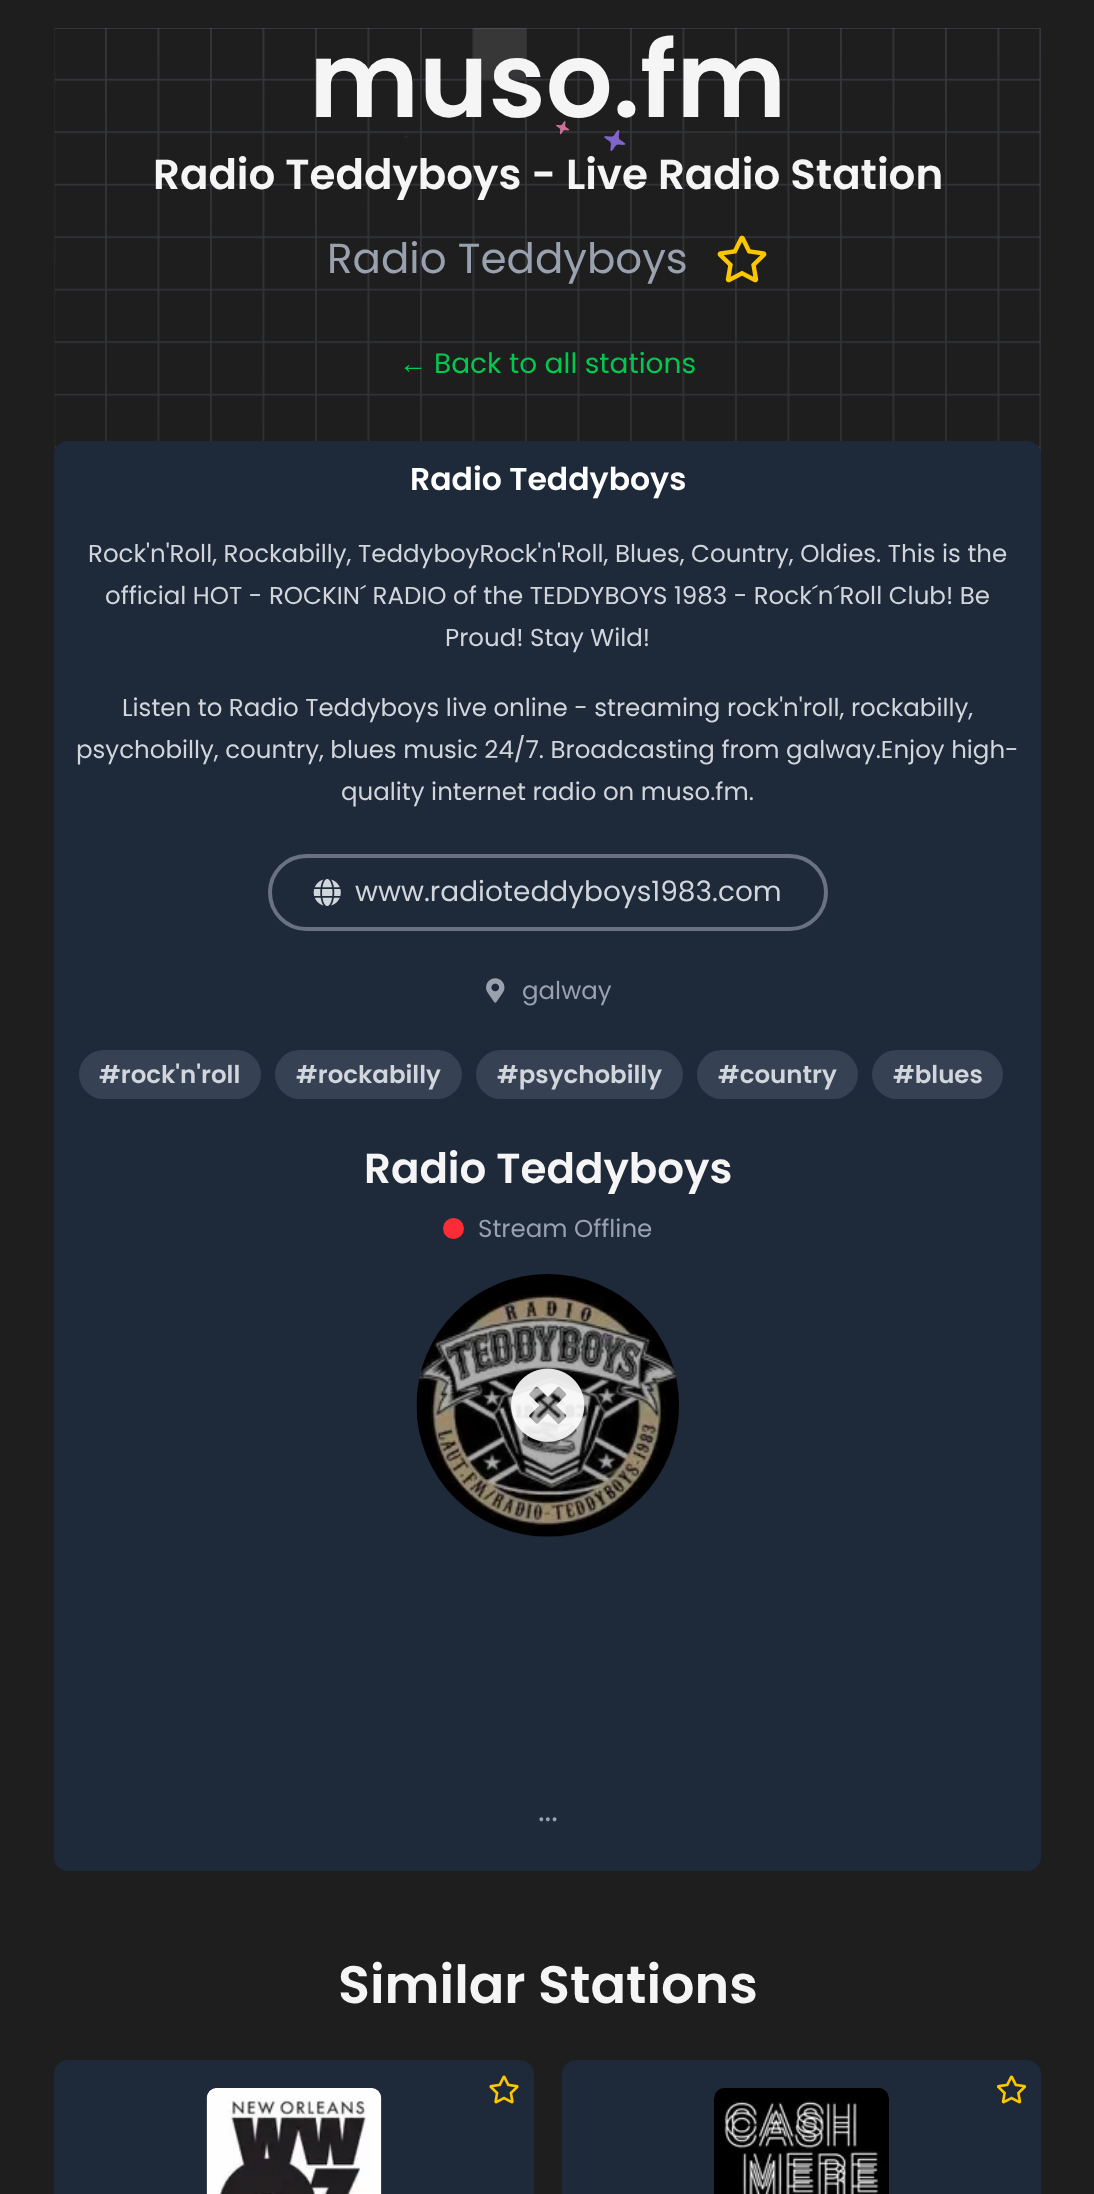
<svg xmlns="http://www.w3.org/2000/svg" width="1094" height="2194">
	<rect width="100%" height="100%" fill="#1E1E1E" />
	<image x="54" y="28" width="987" height="427" href="assets/img1.png" />
	<text x="309" y="117" font-family="Poppins" font-size="105" font-weight="600" fill="#F5F5F5">muso.fm</text>
	<image x="556" y="121" width="14" height="14" href="assets/img2.png" />
	<image x="404" y="134" width="4" height="5" href="assets/img3.png" />
	<image x="604" y="130" width="22" height="21" href="assets/img4.png" />
	<text x="153" y="189" font-family="Poppins" font-size="42" font-weight="600" fill="#F5F5F5">Radio Teddyboys - Live Radio Station</text>
	<text x="327" y="273" font-family="Poppins" font-size="42" fill="#99A1AF">Radio Teddyboys</text>
	<image x="717" y="235" width="50" height="48" href="assets/img5.png" />
	<text x="399" y="373" font-family="Liberation Serif" font-size="28" fill="#00C950">←</text>
	<text x="434" y="373" font-family="Poppins" font-size="28" fill="#00C950">Back to all stations</text>
	<rect x="54" y="441" width="987" height="1430" rx="14" fill="#1E2939" />
	<text x="410" y="490" font-family="Poppins" font-size="31.5" font-weight="600" fill="#FFFFFF">Radio Teddyboys</text>
	<g font-family="Poppins" font-size="24.5" fill="#D1D5DC">
		<text x="88" y="562">Rock'n'Roll, Rockabilly, TeddyboyRock'n'Roll, Blues, Country, Oldies. This is the</text>
		<text x="105" y="604">official HOT - ROCKIN´ RADIO of the TEDDYBOYS 1983 - Rock´n´Roll Club! Be</text>
		<text x="445" y="646">Proud! Stay Wild!</text>
		<text x="122" y="716">Listen to Radio Teddyboys live online - streaming rock'n'roll, rockabilly,</text>
		<text x="76" y="758">psychobilly, country, blues music 24/7. Broadcasting from galway.Enjoy high-</text>
		<text x="341" y="800">quality internet radio on muso.fm.</text>
	</g>
	<rect x="270" y="856" width="556" height="73" rx="36.5" fill="none" stroke="#6A7282" stroke-width="4" />
	<image x="313" y="879" width="28" height="27" href="assets/img6.png" />
	<text x="355" y="901" font-family="Poppins" font-size="28" fill="#D1D5DC">www.radioteddyboys1983.com</text>
	<image x="486" y="978" width="19" height="25" href="assets/img7.png" />
	<text x="522" y="999" font-family="Poppins" font-size="24.5" fill="#99A1AF">galway</text>
	<rect x="79" y="1050" width="182" height="49" rx="24.5" fill="#364153" />
	<text x="99" y="1083" font-family="Poppins" font-size="24.5" font-weight="600" fill="#D1D5DC">#rock'n'roll</text>
	<rect x="275" y="1050" width="187" height="49" rx="24.5" fill="#364153" />
	<text x="296" y="1083" font-family="Poppins" font-size="24.5" font-weight="600" fill="#D1D5DC">#rockabilly</text>
	<rect x="476" y="1050" width="207" height="49" rx="24.5" fill="#364153" />
	<text x="497" y="1083" font-family="Poppins" font-size="24.5" font-weight="600" fill="#D1D5DC">#psychobilly</text>
	<rect x="697" y="1050" width="161" height="49" rx="24.5" fill="#364153" />
	<text x="718" y="1083" font-family="Poppins" font-size="24.5" font-weight="600" fill="#D1D5DC">#country</text>
	<rect x="872" y="1050" width="131" height="49" rx="24.5" fill="#364153" />
	<text x="893" y="1083" font-family="Poppins" font-size="24.5" font-weight="600" fill="#D1D5DC">#blues</text>
	<text x="364" y="1183" font-family="Poppins" font-size="42" font-weight="600" fill="#F5F5F5">Radio Teddyboys</text>
	<circle cx="453.5" cy="1228.5" r="10.5" fill="#FB2C36" />
	<text x="478" y="1237" font-family="Poppins" font-size="24.5" fill="#99A1AF">Stream Offline</text>
	<image x="416" y="1274" width="263" height="263" href="assets/img8.png" />
	<rect x="417" y="1274" width="262" height="263" rx="131" fill="#000000" fill-opacity="0.3" />
	<image x="511" y="1368" width="74" height="74" href="assets/img9.png" />
	<text x="538" y="1821" font-family="Poppins" font-size="31.5" fill="#99A1AF">...</text>
	<text x="338" y="2003" font-family="Poppins" font-size="52.5" font-weight="600" fill="#F5F5F5">Similar Stations</text>
	<rect x="54" y="2060" width="480" height="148" rx="14" fill="#1E2939" />
	<image x="206" y="2088" width="176" height="106" href="assets/img10.png" />
	<image x="489" y="2075" width="30" height="29" href="assets/img11.png" />
	<rect x="562" y="2060" width="479" height="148" rx="14" fill="#1E2939" />
	<image x="714" y="2088" width="175" height="106" href="assets/img12.png" />
	<image x="996" y="2075" width="31" height="29" href="assets/img13.png" />
</svg>
